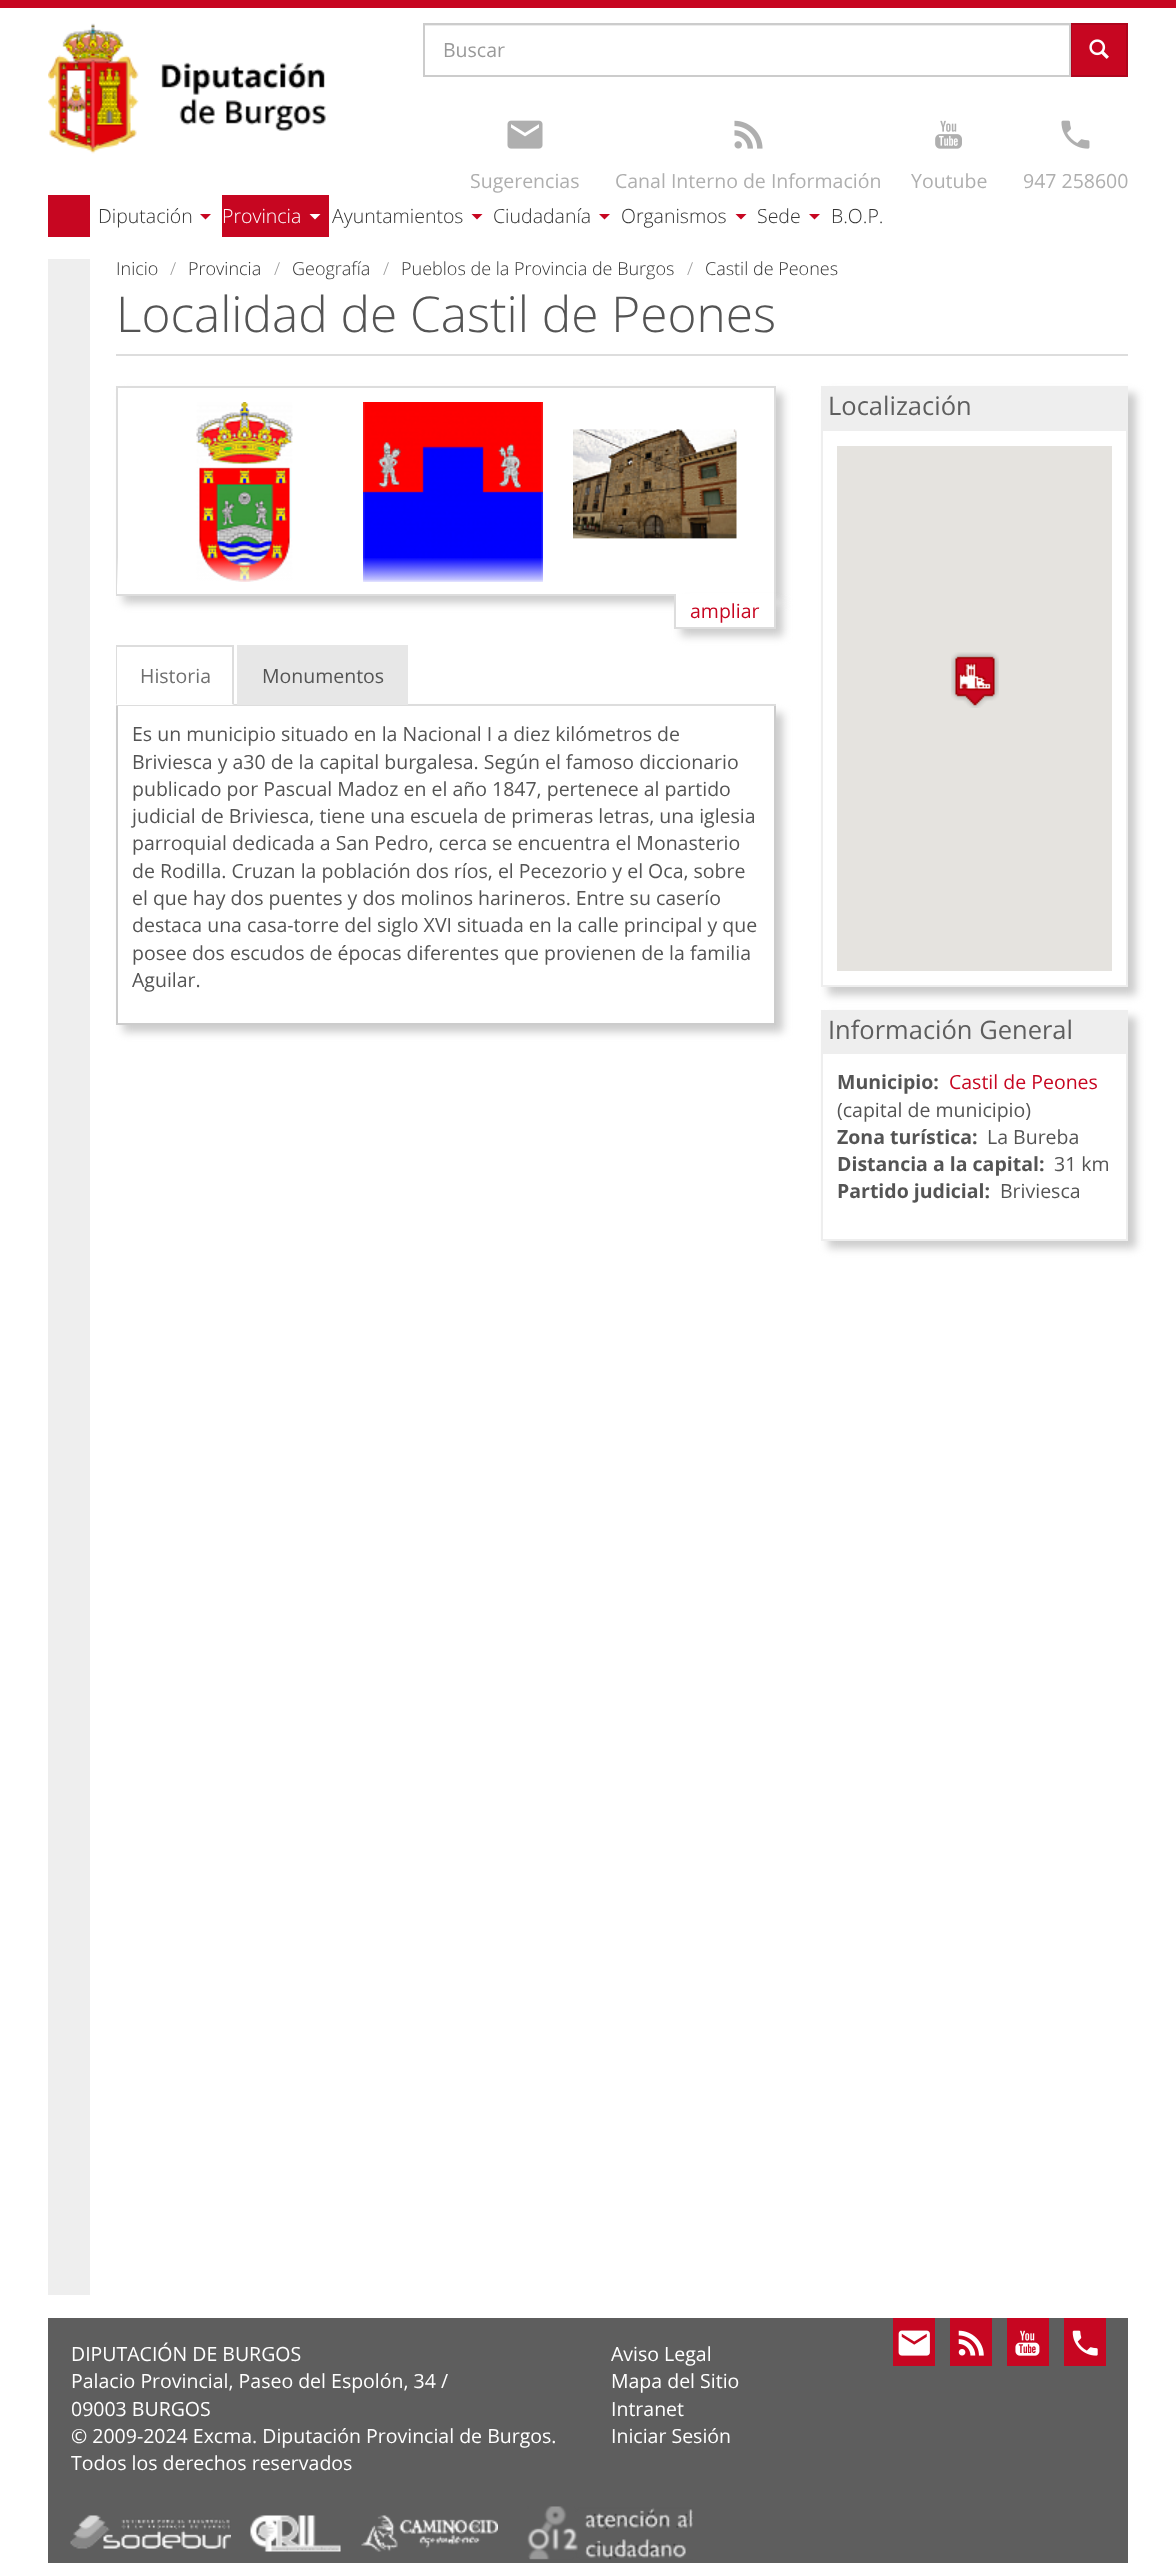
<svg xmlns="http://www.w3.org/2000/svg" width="1176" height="2563">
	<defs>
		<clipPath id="clip1"><path d="M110 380H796V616H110ZM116 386H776V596H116Z" clip-rule="evenodd" /></clipPath>
		<linearGradient id="g1" gradientUnits="userSpaceOnUse" x1="446" y1="594" x2="446" y2="557"><stop offset="0.2" stop-color="#FFFFFF" /><stop offset="1" stop-color="#FFFFFF" stop-opacity="0" /></linearGradient>
		<clipPath id="clip2"><path d="M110 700H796V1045H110ZM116 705H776V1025H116Z" clip-rule="evenodd" /></clipPath>
		<clipPath id="clip3"><path d="M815 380H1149V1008H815ZM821 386H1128V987H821Z" clip-rule="evenodd" /></clipPath>
		<clipPath id="clip4"><path d="M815 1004H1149V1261H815ZM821 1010H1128V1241H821Z" clip-rule="evenodd" /></clipPath>
	</defs>
	<rect width="100%" height="100%" fill="#FFFFFF" />
	<rect x="0" y="0" width="1176" height="8" fill="#C70621" />
	<image x="48" y="23" width="278" height="131" href="assets/img1.png" />
	<rect x="425" y="25" width="645" height="1" fill="#ECECEC" />
	<rect x="1071" y="24" width="56" height="52" fill="#C70621" stroke="#AE051D" stroke-width="2" />
	<rect x="424" y="24" width="646" height="52" fill="none" stroke="#CCCCCC" stroke-width="2" />
	<text x="443" y="57" font-family="Open Sans" font-size="19.5" fill="#999999">Buscar</text>
	<image x="1089" y="39" width="20" height="20" href="assets/img2.png" />
	<image x="507" y="120" width="36" height="29" href="assets/img3.png" />
	<text x="470" y="188" font-family="Open Sans" font-size="19.5" fill="#AFAFAF">Sugerencias</text>
	<image x="734" y="120" width="29" height="29" href="assets/img4.png" />
	<text x="615" y="188" font-family="Open Sans" font-size="19.5" fill="#AFAFAF">Canal Interno de Información</text>
	<image x="935" y="120" width="27" height="29" href="assets/img5.png" />
	<text x="911" y="188" font-family="Open Sans" font-size="19.5" fill="#AFAFAF">Youtube</text>
	<image x="1061" y="120" width="29" height="29" href="assets/img6.png" />
	<text x="1023" y="188" font-family="Open Sans" font-size="19.5" fill="#AFAFAF">947 258600</text>
	<rect x="48" y="195" width="42" height="42" fill="#C70621" />
	<text x="98" y="223" font-family="Open Sans" font-size="19.5" font-weight="300" fill="#333333">Diputación</text>
	<path d="M200 214L205.5 219.5L211 214Z" fill="#C70621" />
	<rect x="222" y="195" width="107" height="42" fill="#C70621" />
	<text x="222" y="223" font-family="Open Sans" font-size="19.5" font-weight="300" fill="#FFFFFF">Provincia</text>
	<path d="M309.5 214L315 219.5L320.5 214Z" fill="#FFFFFF" />
	<text x="332" y="223" font-family="Open Sans" font-size="19.5" font-weight="300" fill="#333333">Ayuntamientos</text>
	<path d="M471.5 214L477 219.5L482.5 214Z" fill="#C70621" />
	<text x="493" y="223" font-family="Open Sans" font-size="19.5" font-weight="300" fill="#333333">Ciudadanía</text>
	<path d="M599 214L604.5 219.5L610 214Z" fill="#C70621" />
	<text x="621" y="223" font-family="Open Sans" font-size="19.5" font-weight="300" fill="#333333">Organismos</text>
	<path d="M735.5 214L741 219.5L746.5 214Z" fill="#C70621" />
	<text x="757" y="223" font-family="Open Sans" font-size="19.5" font-weight="300" fill="#333333">Sede</text>
	<path d="M809 214L814.5 219.5L820 214Z" fill="#C70621" />
	<text x="831" y="223" font-family="Open Sans" font-size="19.5" font-weight="300" fill="#333333">B.O.P.</text>
	<rect x="48" y="259" width="42" height="2036" fill="#EEEEEE" />
	<text x="116" y="275" font-family="Open Sans" font-size="18" font-weight="300" fill="#333333">Inicio</text>
	<text x="170" y="275" font-family="Open Sans" font-size="18" font-weight="300" fill="#999999">/</text>
	<text x="188" y="275" font-family="Open Sans" font-size="18" font-weight="300" fill="#333333">Provincia</text>
	<text x="274" y="275" font-family="Open Sans" font-size="18" font-weight="300" fill="#999999">/</text>
	<text x="292" y="275" font-family="Open Sans" font-size="18" font-weight="300" fill="#333333">Geografía</text>
	<text x="383" y="275" font-family="Open Sans" font-size="18" font-weight="300" fill="#999999">/</text>
	<text x="401" y="275" font-family="Open Sans" font-size="18" font-weight="300" fill="#333333">Pueblos de la Provincia de Burgos</text>
	<text x="687" y="275" font-family="Open Sans" font-size="18" font-weight="300" fill="#999999">/</text>
	<text x="705" y="275" font-family="Open Sans" font-size="18" font-weight="300" fill="#333333">Castil de Peones</text>
	<rect x="116" y="354" width="1012" height="2" fill="#DDDDDD" />
	<text x="116" y="332" font-family="Open Sans" font-size="49.5" font-weight="300" fill="#545454">Localidad de Castil de Peones</text>
	<g clip-path="url(#clip1)">
		<rect x="123" y="393" width="660" height="210" fill="#CCCCCC" filter="blur(4px)" />
	</g>
	<rect x="117" y="387" width="658" height="208" fill="none" stroke="#DDDDDD" stroke-width="2" />
	<image x="196" y="402" width="97" height="180" href="assets/img7.png" />
	<image x="363" y="402" width="180" height="180" href="assets/img8.png" />
	<image x="573" y="429" width="164" height="110" href="assets/img9.png" />
	<rect x="117" y="558" width="426" height="36" fill="url(#g1)" />
	<rect x="681" y="602" width="102" height="34" fill="#CCCCCC" filter="blur(4px)" />
	<rect x="676" y="594" width="98" height="33" fill="#FFFFFF" />
	<rect x="774" y="594" width="2" height="35" fill="#DDDDDD" />
	<rect x="674" y="627" width="102" height="2" fill="#DDDDDD" />
	<rect x="674" y="594" width="2" height="35" fill="#DDDDDD" />
	<text x="690" y="618" font-family="Open Sans" font-size="19.5" fill="#C70621">ampliar</text>
	<g clip-path="url(#clip2)">
		<rect x="123" y="713" width="660" height="319" fill="#CCCCCC" filter="blur(4px)" />
	</g>
	<rect x="774" y="705" width="2" height="320" fill="#CCCCCC" />
	<rect x="116" y="1023" width="660" height="2" fill="#CCCCCC" />
	<rect x="116" y="705" width="2" height="320" fill="#CCCCCC" />
	<rect x="116" y="704" width="660" height="2" fill="#DDDDDD" />
	<rect x="116" y="704" width="118" height="1" fill="#FFFFFF" />
	<rect x="116" y="645" width="118" height="2" fill="#DDDDDD" />
	<path d="M234 645V705L232 704V646Z" fill="#DDDDDD" />
	<path d="M116 705V645L117 646V704Z" fill="#DDDDDD" />
	<text x="140" y="683" font-family="Open Sans" font-size="19.5" fill="#6F6F6F">Historia</text>
	<rect x="237" y="645" width="171" height="60" fill="#E7E7E7" />
	<g font-family="Open Sans" font-size="19.5" fill="#545454">
		<text x="262" y="683">Monumentos</text>
		<text x="132" y="741">Es un municipio situado en la Nacional I a diez kilómetros de</text>
		<text x="132" y="769">Briviesca y a30 de la capital burgalesa. Según el famoso diccionario</text>
		<text x="132" y="796">publicado por Pascual Madoz en el año 1847, pertenece al partido</text>
		<text x="132" y="823">judicial de Briviesca, tiene una escuela de primeras letras, una iglesia</text>
		<text x="132" y="850">parroquial dedicada a San Pedro, cerca se encuentra el Monasterio</text>
		<text x="132" y="878">de Rodilla. Cruzan la población dos ríos, el Pecezorio y el Oca, sobre</text>
		<text x="132" y="905">el que hay dos puentes y dos molinos harineros. Entre su caserío</text>
		<text x="132" y="932">destaca una casa-torre del siglo XVI situada en la calle principal y que</text>
		<text x="132" y="960">posee dos escudos de épocas diferentes que provienen de la familia</text>
		<text x="132" y="987">Aguilar.</text>
	</g>
	<g clip-path="url(#clip3)">
		<rect x="828" y="393" width="308" height="602" fill="#CCCCCC" filter="blur(4px)" />
	</g>
	<rect x="821" y="386" width="307" height="43" fill="#EEEEEE" />
	<text x="828" y="415" font-family="Open Sans" font-size="25.5" fill="#5E5E5E">Localización</text>
	<rect x="822" y="430" width="305" height="556" fill="none" stroke="#EEEEEE" stroke-width="2" />
	<rect x="837" y="446" width="275" height="525" fill="#E5E3DF" />
	<image x="951" y="652" width="48" height="56" href="assets/img10.png" />
	<g clip-path="url(#clip4)">
		<rect x="828" y="1017" width="308" height="231" fill="#CCCCCC" filter="blur(4px)" />
	</g>
	<rect x="821" y="1010" width="307" height="42" fill="#EEEEEE" />
	<text x="828" y="1039" font-family="Open Sans" font-size="25.5" fill="#5E5E5E">Información General</text>
	<rect x="822" y="1053" width="305" height="187" fill="none" stroke="#EEEEEE" stroke-width="2" />
	<text x="949" y="1089" font-family="Open Sans" font-size="19.5" fill="#C70621">Castil de Peones</text>
	<text x="837" y="1117" font-family="Open Sans" font-size="19.5" fill="#545454">(capital de municipio)</text>
	<g font-family="Open Sans" font-size="19.5" font-weight="700" fill="#545454">
		<text x="837" y="1089">Municipio:</text>
		<text x="837" y="1144">Zona turística:</text>
	</g>
	<text x="987" y="1144" font-family="Open Sans" font-size="19.5" fill="#545454">La Bureba</text>
	<text x="837" y="1171" font-family="Open Sans" font-size="19.5" font-weight="700" fill="#545454">Distancia a la capital:</text>
	<text x="1054" y="1171" font-family="Open Sans" font-size="19.5" fill="#545454">31 km</text>
	<text x="837" y="1198" font-family="Open Sans" font-size="19.5" font-weight="700" fill="#545454">Partido judicial:</text>
	<text x="1000" y="1198" font-family="Open Sans" font-size="19.5" fill="#545454">Briviesca</text>
	<rect x="48" y="2318" width="1080" height="245" fill="#5E5E5E" />
	<g font-family="Open Sans" font-size="19.5" fill="#FFFFFF">
		<text x="71" y="2361">DIPUTACIÓN DE BURGOS</text>
		<text x="71" y="2388">Palacio Provincial, Paseo del Espolón, 34 /</text>
		<text x="71" y="2416">09003 BURGOS</text>
		<text x="71" y="2443">© 2009-2024 Excma. Diputación Provincial de Burgos.</text>
		<text x="71" y="2470">Todos los derechos reservados</text>
		<text x="611" y="2361">Aviso Legal</text>
		<text x="611" y="2388">Mapa del Sitio</text>
		<text x="611" y="2416">Intranet</text>
		<text x="611" y="2443">Iniciar Sesión</text>
	</g>
	<rect x="893" y="2318" width="42" height="48" fill="#C70621" />
	<image x="898" y="2330" width="32" height="26" href="assets/img11.png" />
	<rect x="950" y="2318" width="42" height="48" fill="#C70621" />
	<image x="958" y="2330" width="26" height="26" href="assets/img12.png" />
	<rect x="1007" y="2318" width="42" height="48" fill="#C70621" />
	<image x="1015" y="2330" width="25" height="26" href="assets/img13.png" />
	<rect x="1064" y="2318" width="42" height="48" fill="#C70621" />
	<image x="1072" y="2330" width="26" height="26" href="assets/img14.png" />
	<image x="70" y="2515" width="161" height="34" href="assets/img15.png" />
	<image x="250" y="2515" width="91" height="37" href="assets/img16.png" />
	<image x="361" y="2515" width="137" height="37" href="assets/img17.png" />
	<image x="527" y="2506" width="166" height="54" href="assets/img18.png" />
</svg>
